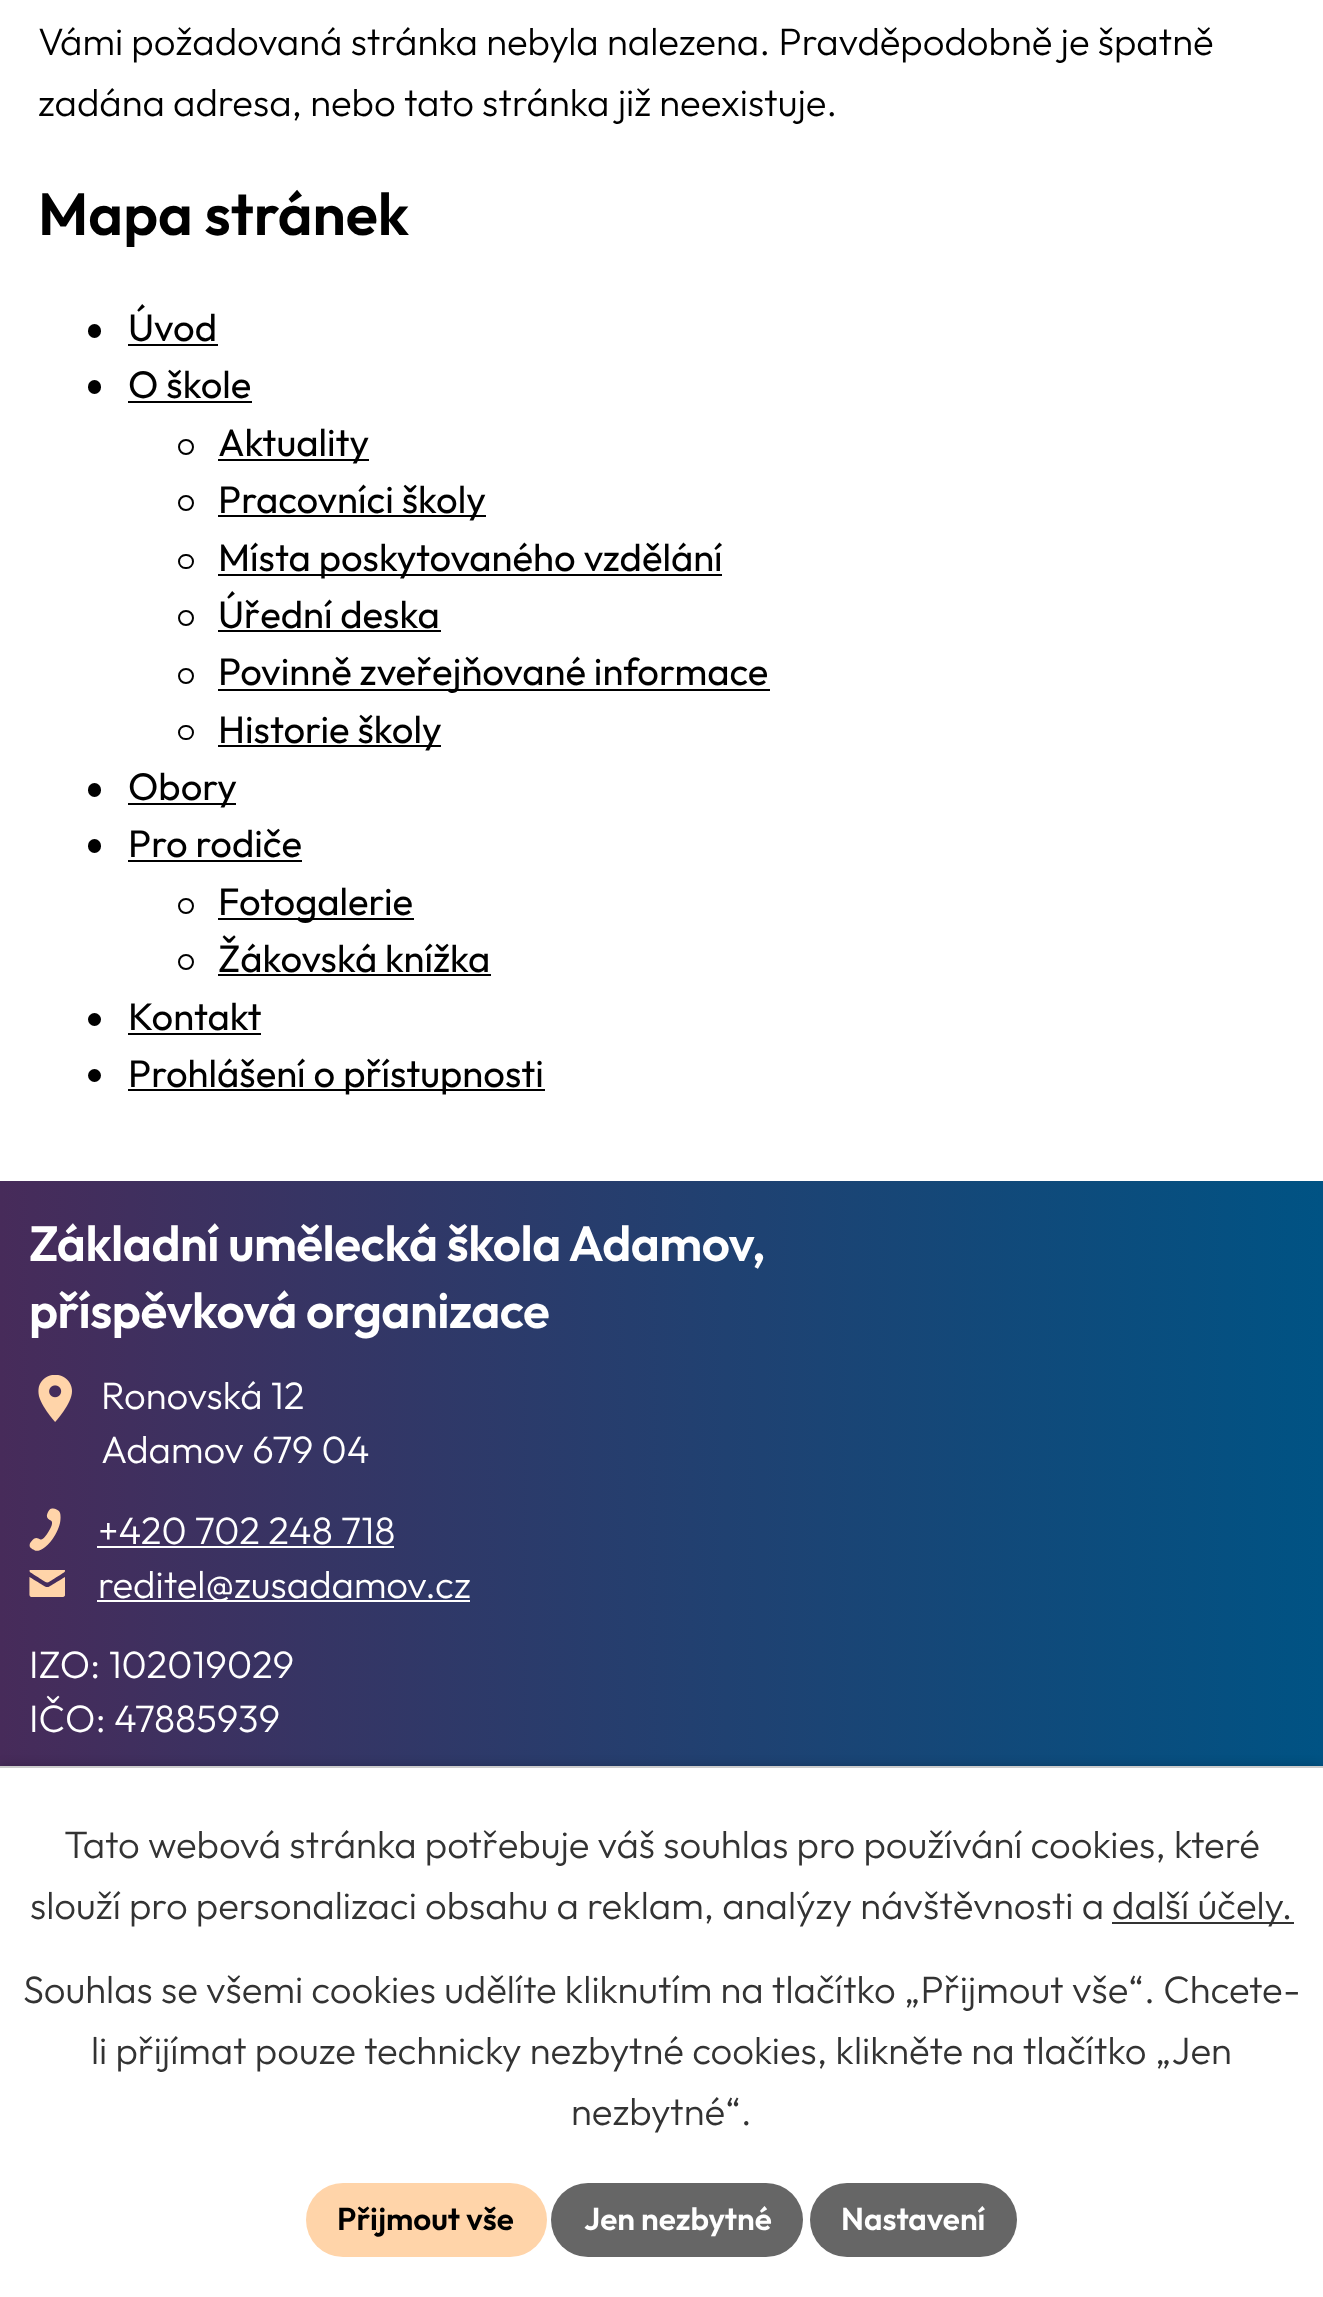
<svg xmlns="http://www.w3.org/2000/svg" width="1323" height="2297">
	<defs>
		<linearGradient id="g1" gradientUnits="userSpaceOnUse" x1="1323" y1="1752" x2="0" y2="1752"><stop offset="0" stop-color="#005384" /><stop offset="1" stop-color="#472B5A" /></linearGradient>
	</defs>
	<rect width="100%" height="100%" fill="#FFFFFF" />
	<g font-family="Outfit" font-size="38.25" font-weight="300" fill="#000000">
		<text x="38" y="55">Vámi požadovaná stránka nebyla nalezena. Pravděpodobně je špatně</text>
		<text x="38" y="116">zadána adresa, nebo tato stránka již neexistuje.</text>
	</g>
	<text x="38" y="235" font-family="Outfit" font-size="59.25" font-weight="600" fill="#000000">Mapa stránek</text>
	<rect x="88" y="324" width="13" height="14" rx="6.5" fill="#000000" />
	<text x="128" y="341" font-family="Outfit" font-size="38.25" fill="#000000">Úvod</text>
	<rect x="128" y="344" width="90" height="2" fill="#000000" />
	<rect x="88" y="380" width="13" height="14" rx="6.5" fill="#000000" />
	<text x="128" y="398" font-family="Outfit" font-size="38.25" fill="#000000">O škole</text>
	<rect x="128" y="401" width="124" height="2" fill="#000000" />
	<circle cx="186" cy="447" r="7" fill="none" stroke="#000000" stroke-width="2" />
	<rect x="218" y="459" width="151" height="2" fill="#000000" />
	<text x="218" y="456" font-family="Outfit" font-size="38.25" fill="#000000">Aktuality</text>
	<circle cx="186" cy="503" r="7" fill="none" stroke="#000000" stroke-width="2" />
	<rect x="218" y="515" width="268" height="2" fill="#000000" />
	<text x="218" y="513" font-family="Outfit" font-size="38.25" fill="#000000">Pracovníci školy</text>
	<rect x="179" y="555" width="14" height="13" rx="6.5" fill="none" stroke="#000000" stroke-width="2" />
	<rect x="218" y="574" width="504" height="2" fill="#000000" />
	<text x="218" y="571" font-family="Outfit" font-size="38.25" fill="#000000">Místa poskytovaného vzdělání</text>
	<circle cx="186" cy="618" r="7" fill="none" stroke="#000000" stroke-width="2" />
	<text x="218" y="628" font-family="Outfit" font-size="38.25" fill="#000000">Úřední deska</text>
	<rect x="218" y="630" width="223" height="2" fill="#000000" />
	<circle cx="186" cy="676" r="7" fill="none" stroke="#000000" stroke-width="2" />
	<rect x="218" y="689" width="552" height="2" fill="#000000" />
	<text x="218" y="685" font-family="Outfit" font-size="38.25" fill="#000000">Povinně zveřejňované informace</text>
	<rect x="179" y="726" width="14" height="13" rx="6.5" fill="none" stroke="#000000" stroke-width="2" />
	<rect x="218" y="745" width="223" height="2" fill="#000000" />
	<text x="218" y="743" font-family="Outfit" font-size="38.25" fill="#000000">Historie školy</text>
	<rect x="88" y="783" width="13" height="14" rx="6.5" fill="#000000" />
	<rect x="128" y="803" width="108" height="2" fill="#000000" />
	<text x="128" y="800" font-family="Outfit" font-size="38.25" fill="#000000">Obory</text>
	<rect x="88" y="839" width="13" height="14" rx="6.5" fill="#000000" />
	<text x="128" y="857" font-family="Outfit" font-size="38.25" fill="#000000">Pro rodiče</text>
	<rect x="128" y="860" width="174" height="2" fill="#000000" />
	<circle cx="186" cy="906" r="7" fill="none" stroke="#000000" stroke-width="2" />
	<rect x="218" y="918" width="196" height="2" fill="#000000" />
	<text x="218" y="915" font-family="Outfit" font-size="38.25" fill="#000000">Fotogalerie</text>
	<circle cx="186" cy="962" r="7" fill="none" stroke="#000000" stroke-width="2" />
	<text x="218" y="972" font-family="Outfit" font-size="38.25" fill="#000000">Žákovská knížka</text>
	<rect x="218" y="974" width="273" height="2" fill="#000000" />
	<circle cx="94.5" cy="1019.5" r="6.5" fill="#000000" />
	<text x="128" y="1030" font-family="Outfit" font-size="38.25" fill="#000000">Kontakt</text>
	<rect x="128" y="1033" width="133" height="2" fill="#000000" />
	<circle cx="94.5" cy="1075.5" r="6.5" fill="#000000" />
	<rect x="128" y="1089" width="417" height="2" fill="#000000" />
	<text x="128" y="1087" font-family="Outfit" font-size="38.25" fill="#000000">Prohlášení o přístupnosti</text>
	<rect x="0" y="1181" width="1323" height="585" fill="url(#g1)" />
	<g font-family="Outfit" font-size="49.5" font-weight="600" letter-spacing="-0.5" fill="#FFFFFF">
		<text x="29" y="1261">Základní umělecká škola Adamov,</text>
		<text x="29" y="1328">příspěvková organizace</text>
	</g>
	<image x="38" y="1375" width="34" height="47" href="assets/img1.png" />
	<g font-family="Outfit" font-size="38.25" font-weight="300" fill="#FFFFFF">
		<text x="101" y="1409">Ronovská 12</text>
		<text x="101" y="1463">Adamov 679 04</text>
	</g>
	<image x="29" y="1508" width="32" height="43" href="assets/img2.png" />
	<text x="98" y="1544" font-family="Outfit" font-size="38.25" font-weight="300" fill="#FFFFFF">+420 702 248 718</text>
	<rect x="97" y="1546" width="297" height="2" fill="#FFFFFF" />
	<image x="29" y="1570" width="36" height="27" href="assets/img3.png" />
	<rect x="97" y="1600" width="373" height="2" fill="#FFFFFF" />
	<g font-family="Outfit" font-size="38.25" font-weight="300" fill="#FFFFFF">
		<text x="98" y="1598">reditel@zusadamov.cz</text>
		<text x="29" y="1678">IZO: 102019029</text>
		<text x="29" y="1732">IČO: 47885939</text>
	</g>
	<rect x="0" y="1766" width="1323" height="531" fill="#000000" fill-opacity="0.2" filter="blur(5.5px)" />
	<rect x="0" y="1768" width="1323" height="529" fill="#FFFFFF" />
	<rect x="0" y="1766" width="1323" height="2" fill="#CCCCCC" />
	<g font-family="Outfit" font-size="38.25" font-weight="300" fill="#333333">
		<text x="64" y="1858">Tato webová stránka potřebuje váš souhlas pro používání cookies, které</text>
		<text x="30" y="1919">slouží pro personalizaci obsahu a reklam, analýzy návštěvnosti a</text>
	</g>
	<rect x="1112" y="1922" width="182" height="2" fill="#333333" />
	<g font-family="Outfit" font-size="38.25" font-weight="300" fill="#333333">
		<text x="1112" y="1919">další účely.</text>
		<text x="23" y="2003">Souhlas se všemi cookies udělíte kliknutím na tlačítko „Přijmout vše“. Chcete-</text>
		<text x="91" y="2064">li přijímat pouze technicky nezbytné cookies, klikněte na tlačítko „Jen</text>
		<text x="571" y="2125">nezbytné“.</text>
	</g>
	<rect x="306" y="2183" width="241" height="74" rx="37" fill="#FFD4A9" />
	<text x="337" y="2230" font-family="Outfit" font-size="31.5" font-weight="600" fill="#000000">Přijmout vše</text>
	<rect x="551" y="2183" width="252" height="74" rx="37" fill="#666666" />
	<text x="584" y="2230" font-family="Outfit" font-size="31.5" font-weight="600" fill="#FFFFFF">Jen nezbytné</text>
	<rect x="810" y="2183" width="207" height="74" rx="37" fill="#666666" />
	<text x="841" y="2230" font-family="Outfit" font-size="31.5" font-weight="600" fill="#FFFFFF">Nastavení</text>
</svg>
